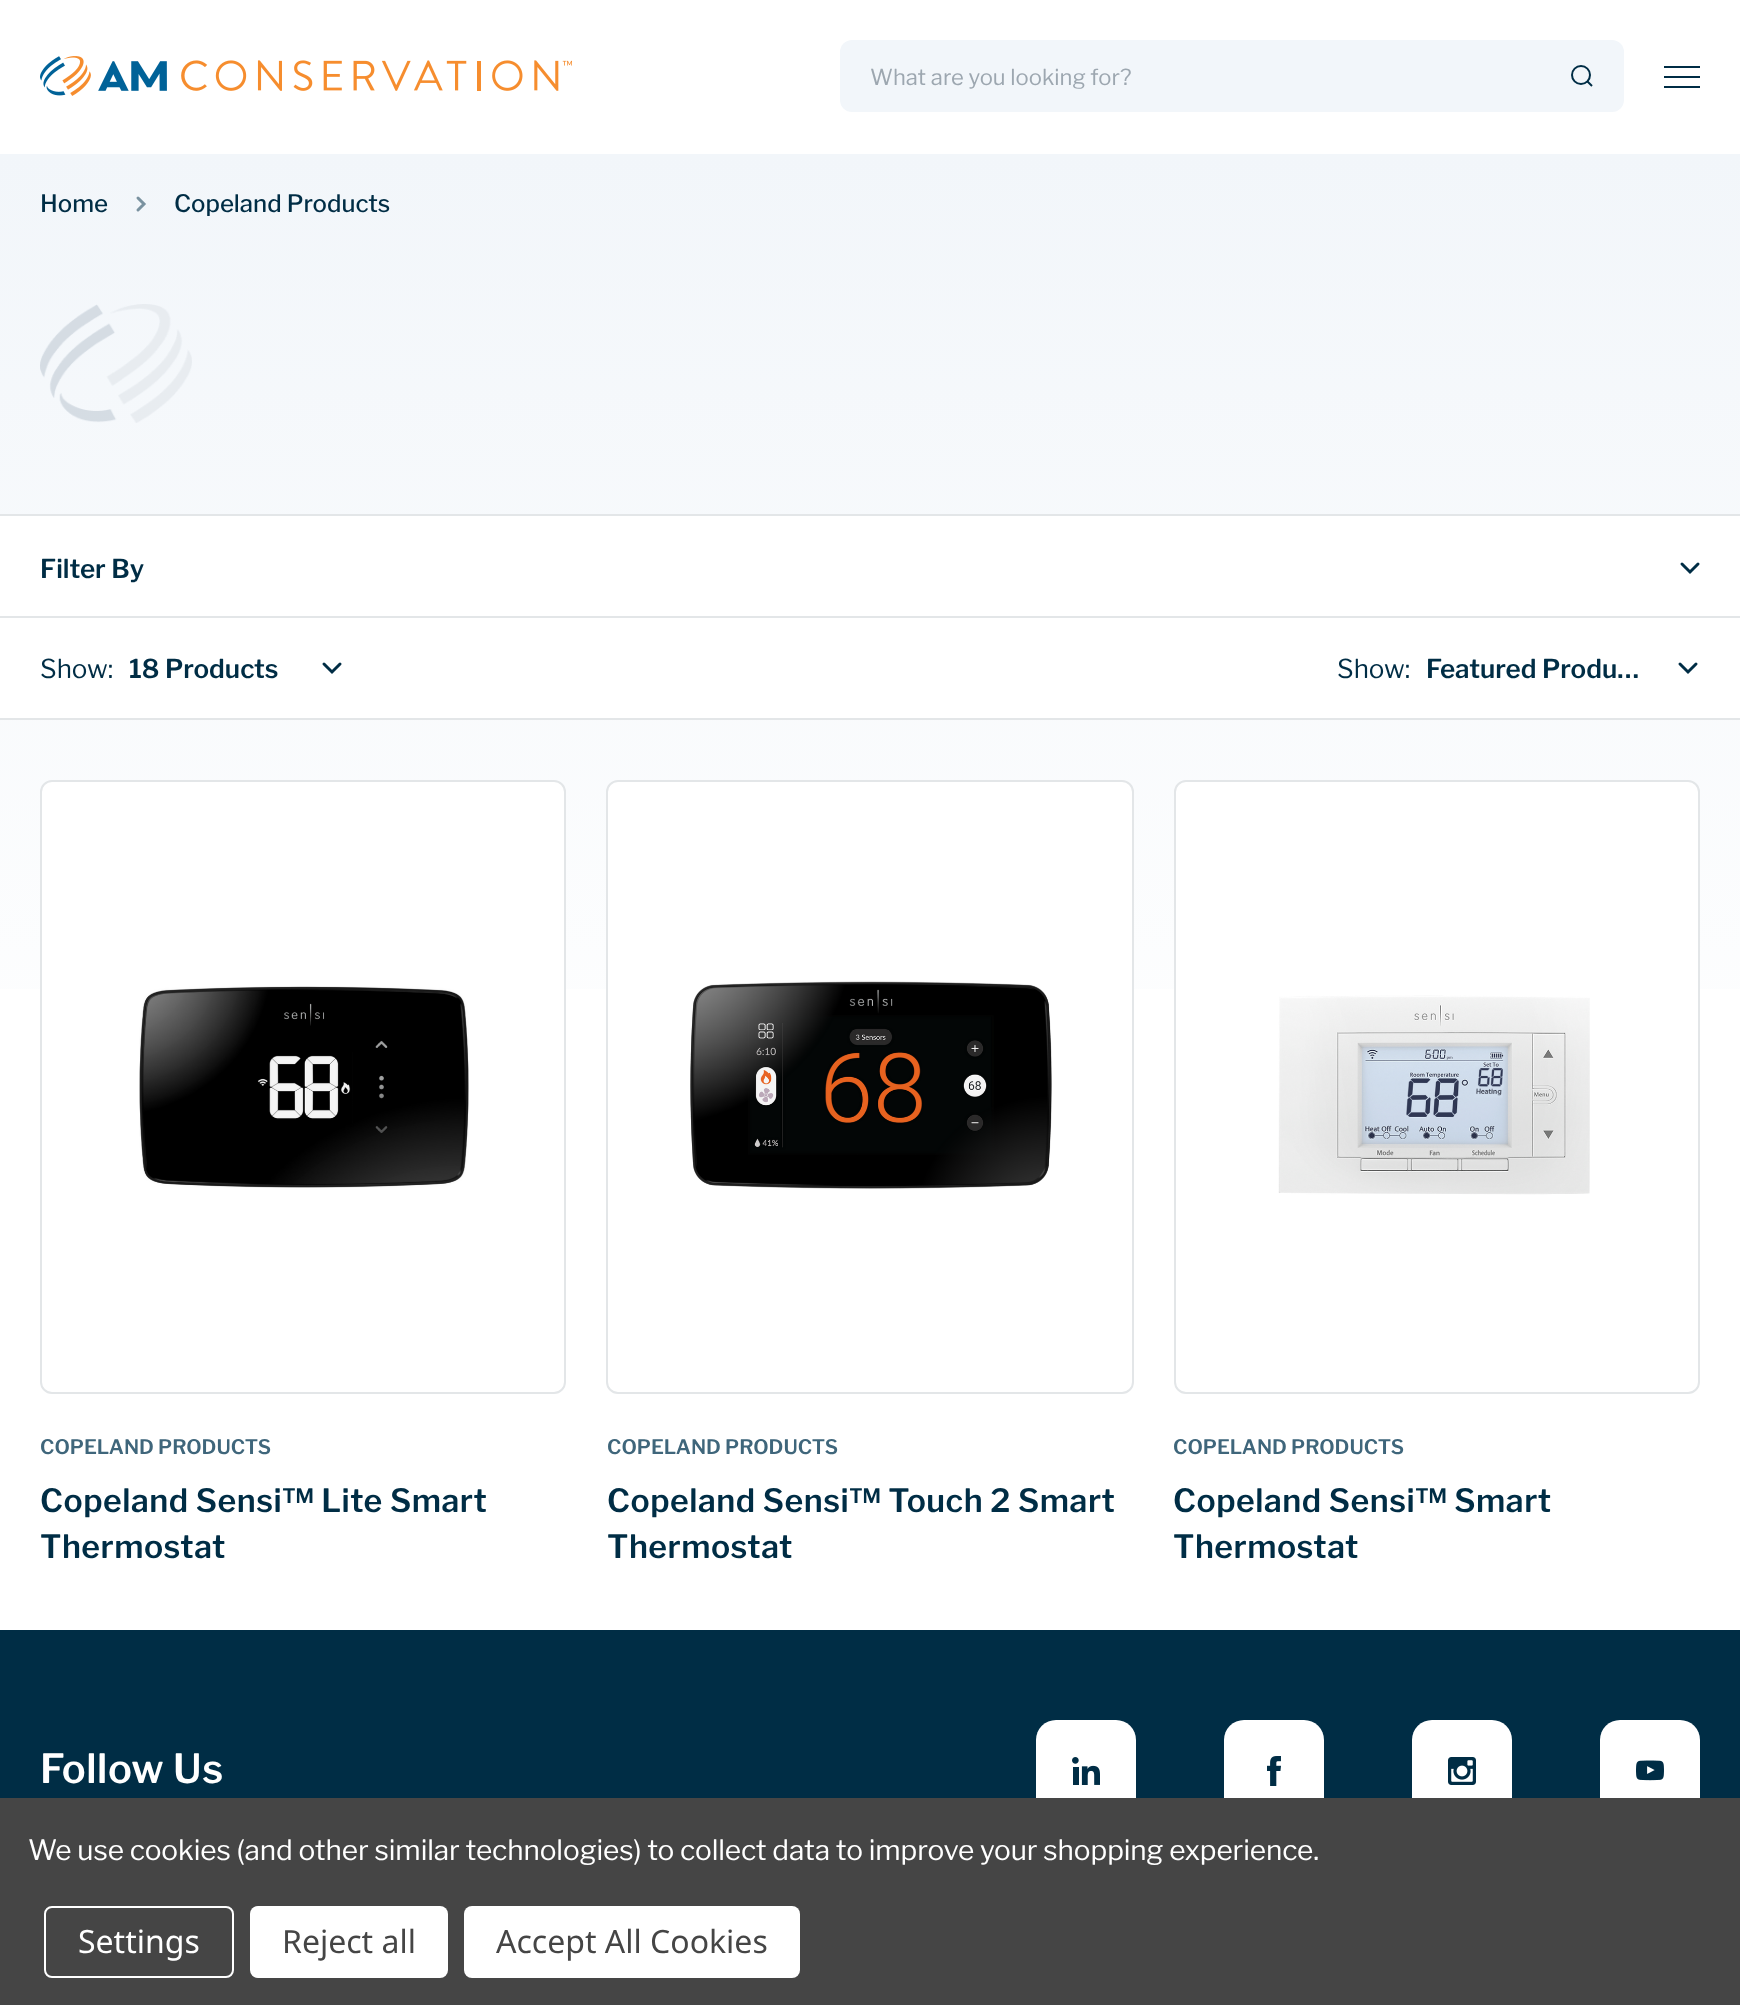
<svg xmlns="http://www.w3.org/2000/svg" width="1740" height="2005">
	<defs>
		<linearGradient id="g1" gradientUnits="userSpaceOnUse" x1="870" y1="154" x2="870" y2="1630"><stop offset="0" stop-color="#F2F6FA" /><stop offset="0.7" stop-color="#FFFFFF" /></linearGradient>
	</defs>
	<rect width="100%" height="100%" fill="#FFFFFF" />
	<image x="40" y="56" width="532" height="40" href="assets/img1.png" />
	<rect x="840" y="40" width="784" height="72" rx="12" fill="#F2F6FA" />
	<text x="870" y="85" font-family="Libre Franklin" font-size="22" fill="#9DA7B0">What are you looking for?</text>
	<circle cx="1581" cy="75" r="9" fill="none" stroke="#002D45" stroke-width="2" />
	<path d="M1587 81L1592 86" fill="none" stroke="#002D45" stroke-width="2" />
	<rect x="1664" y="66" width="36" height="2" fill="#002D45" />
	<rect x="1664" y="76" width="36" height="2" fill="#002D45" />
	<rect x="1664" y="86" width="36" height="2" fill="#002D45" />
	<rect x="0" y="154" width="1740" height="835" fill="url(#g1)" />
	<text x="40" y="212" font-family="Libre Franklin" font-size="24" font-weight="500" fill="#002D45">Home</text>
	<path d="M138 210L144 204L138 198" fill="none" stroke="#7A92A0" stroke-width="3" stroke-linecap="round" />
	<text x="174" y="212" font-family="Libre Franklin" font-size="24" font-weight="500" fill="#002D45">Copeland Products</text>
	<image x="40" y="304" width="152" height="119" href="assets/img2.png" />
	<rect x="0" y="516" width="1740" height="202" fill="#FFFFFF" />
	<rect x="0" y="514" width="1740" height="2" fill="#E3E6E8" />
	<rect x="0" y="718" width="1740" height="2" fill="#E3E6E8" />
	<rect x="0" y="616" width="1740" height="2" fill="#E3E6E8" />
	<text x="40" y="578" font-family="Libre Franklin" font-size="26" font-weight="600" fill="#002D45">Filter By</text>
	<path d="M1682 564L1690 572L1698 564" fill="none" stroke="#002D45" stroke-width="3" stroke-linecap="round" />
	<text x="40" y="678" font-family="Libre Franklin" font-size="26" fill="#002D45">Show:</text>
	<text x="129" y="678" font-family="Libre Franklin" font-size="26" font-weight="600" fill="#002D45">18 Products</text>
	<path d="M324 664L332 672L340 664" fill="none" stroke="#002D45" stroke-width="3" stroke-linecap="round" />
	<text x="1337" y="678" font-family="Libre Franklin" font-size="26" fill="#002D45">Show:</text>
	<text x="1426" y="678" font-family="Libre Franklin" font-size="26" font-weight="600" fill="#002D45">Featured Produ…</text>
	<path d="M1680 664L1688 672L1696 664" fill="none" stroke="#002D45" stroke-width="3" stroke-linecap="round" />
	<rect x="41" y="781" width="524" height="612" rx="11" fill="#FFFFFF" stroke="#E3E6E8" stroke-width="2" />
	<image x="139" y="986" width="330" height="202" href="assets/img3.png" />
	<text x="40" y="1454" font-family="Libre Franklin" font-size="20" font-weight="600" fill="#3F667B">COPELAND PRODUCTS</text>
	<g font-family="Libre Franklin" font-size="32" font-weight="600" letter-spacing="0.5" fill="#002D45">
		<text x="40" y="1512">Copeland Sensi™ Lite Smart</text>
		<text x="40" y="1558">Thermostat</text>
	</g>
	<rect x="607" y="781" width="526" height="612" rx="11" fill="#FFFFFF" stroke="#E3E6E8" stroke-width="2" />
	<image x="690" y="981" width="362" height="208" href="assets/img4.png" />
	<text x="607" y="1454" font-family="Libre Franklin" font-size="20" font-weight="600" fill="#3F667B">COPELAND PRODUCTS</text>
	<g font-family="Libre Franklin" font-size="32" font-weight="600" letter-spacing="0.5" fill="#002D45">
		<text x="607" y="1512">Copeland Sensi™ Touch 2 Smart</text>
		<text x="607" y="1558">Thermostat</text>
	</g>
	<rect x="1175" y="781" width="524" height="612" rx="11" fill="#FFFFFF" stroke="#E3E6E8" stroke-width="2" />
	<image x="1278" y="995" width="312" height="200" href="assets/img5.png" />
	<text x="1173" y="1454" font-family="Libre Franklin" font-size="20" font-weight="600" fill="#3F667B">COPELAND PRODUCTS</text>
	<g font-family="Libre Franklin" font-size="32" font-weight="600" letter-spacing="0.5" fill="#002D45">
		<text x="1173" y="1512">Copeland Sensi™ Smart</text>
		<text x="1173" y="1558">Thermostat</text>
	</g>
	<rect x="0" y="1630" width="1740" height="168" fill="#002D45" />
	<text x="40" y="1783" font-family="Libre Franklin" font-size="40" font-weight="600" letter-spacing="0.5" fill="#FFFFFF">Follow Us</text>
	<rect x="1036" y="1720" width="100" height="100" rx="20" fill="#FFFFFF" />
	<image x="1072" y="1757" width="28" height="28" href="assets/img6.png" />
	<rect x="1224" y="1720" width="100" height="100" rx="20" fill="#FFFFFF" />
	<image x="1267" y="1756" width="14" height="30" href="assets/img7.png" />
	<rect x="1412" y="1720" width="100" height="100" rx="20" fill="#FFFFFF" />
	<image x="1448" y="1757" width="28" height="28" href="assets/img8.png" />
	<rect x="1600" y="1720" width="100" height="100" rx="20" fill="#FFFFFF" />
	<image x="1636" y="1760" width="28" height="21" href="assets/img9.png" />
	<rect x="0" y="1798" width="1740" height="207" fill="#454545" />
	<text x="28" y="1860" font-family="Libre Franklin" font-size="28" letter-spacing="-0.1" fill="#FFFFFF">We use cookies (and other similar technologies) to collect data to improve your shopping experience.</text>
	<rect x="45" y="1907" width="188" height="70" rx="7" fill="none" stroke="#FFFFFF" stroke-width="2" />
	<text x="78" y="1953" font-family="Noto Sans" font-size="32" fill="#FFFFFF">Settings</text>
	<rect x="250" y="1906" width="198" height="72" rx="8" fill="#FFFFFF" />
	<text x="282" y="1953" font-family="Noto Sans" font-size="32" fill="#454545">Reject all</text>
	<rect x="464" y="1906" width="336" height="72" rx="8" fill="#FFFFFF" />
	<text x="496" y="1953" font-family="Noto Sans" font-size="32" fill="#454545">Accept All Cookies</text>
</svg>
